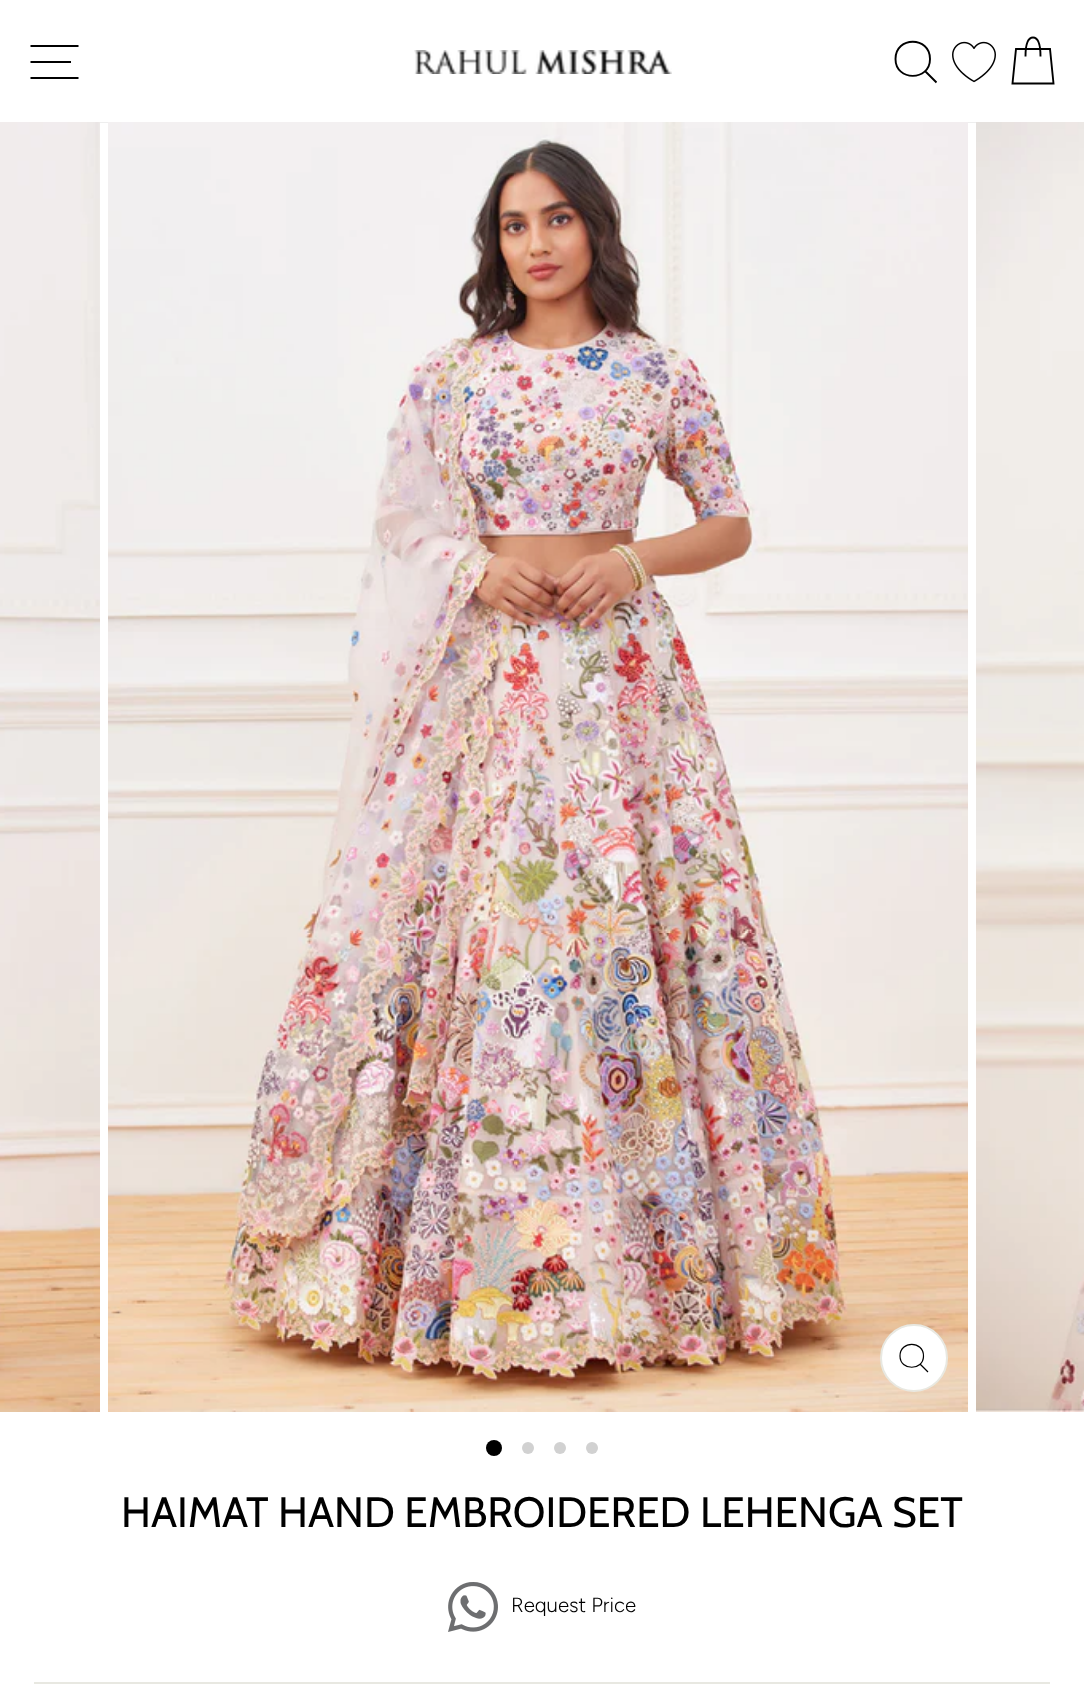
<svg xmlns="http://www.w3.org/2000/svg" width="1084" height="1697">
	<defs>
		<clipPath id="clip1"><rect x="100" y="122" width="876" height="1" /></clipPath>
	</defs>
	<rect width="100%" height="100%" fill="#FFFFFF" />
	<g clip-path="url(#clip1)">
		<rect x="0" y="0" width="1084" height="122" fill="#000000" fill-opacity="0.2" filter="blur(1px)" />
	</g>
	<path d="M30.5 46H78.5M30.5 62H71M30.5 78H78.5" fill="none" stroke="#000000" stroke-width="1.9" />
	<image x="414" y="50" width="258" height="24" href="assets/img1.png" />
	<path d="M930 59C930 81.5 895.5 81.5 895.5 59C895.5 36 930 36 930 59ZM936.5 82.5L925.5 71.5" fill="none" stroke="#000000" stroke-width="1.9" />
	<image x="952" y="41" width="44" height="42" href="assets/img2.png" />
	<path d="M1025.5 56.5C1025.5 41.5 1029 37.5 1033 37.5C1037 37.5 1040.5 41.5 1040.5 56.5M1016 49H1050L1053.5 83.5H1012.5Z" fill="none" stroke="#000000" stroke-width="1.9" />
	<image x="0" y="122" width="100" height="1290" href="assets/img3.png" />
	<image x="108" y="122" width="860" height="1290" href="assets/img4.png" />
	<circle cx="914" cy="1358" r="33" fill="#FFFFFF" stroke="#E8E8E1" stroke-width="2" />
	<path d="M923.5 1356C923.5 1371 900 1371 900 1356C900 1340.5 923.5 1340.5 923.5 1356ZM928 1372L920 1364" fill="none" stroke="#000000" stroke-width="1.2" />
	<image x="976" y="122" width="108" height="1290" href="assets/img5.png" />
	<circle cx="494" cy="1448" r="8" fill="#000000" />
	<circle cx="528" cy="1448" r="6" fill="#D1D1D1" />
	<circle cx="560" cy="1448" r="6" fill="#D1D1D1" />
	<circle cx="592" cy="1448" r="6" fill="#D1D1D1" />
	<text x="121" y="1527" font-family="Cabin" font-size="42.4" fill="#000000">HAIMAT HAND EMBROIDERED LEHENGA SET</text>
	<image x="448" y="1582" width="50" height="50" href="assets/img6.png" />
	<text x="511" y="1612" font-family="Figtree" font-size="20.5" font-weight="300" fill="#000000">Request Price</text>
	<rect x="34" y="1682" width="1016" height="2" fill="#E8E8E1" />
</svg>
